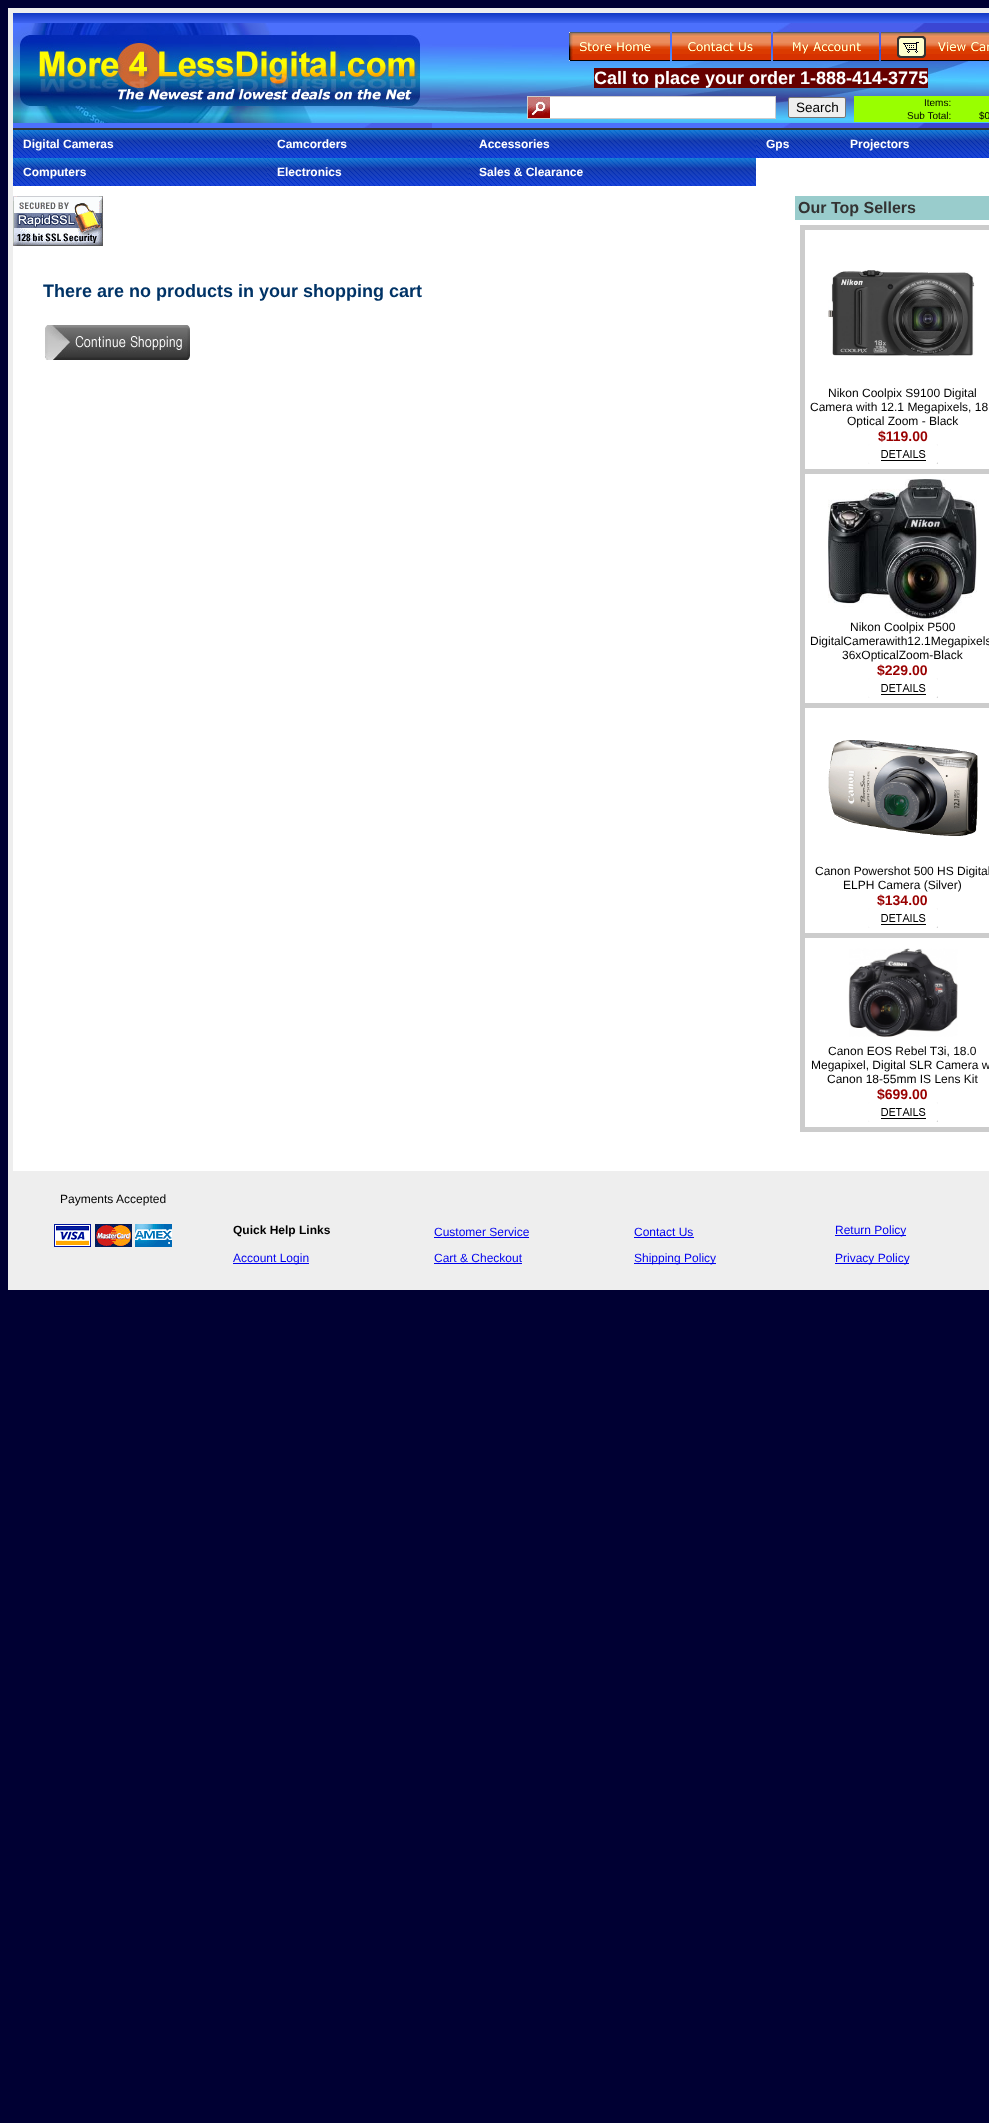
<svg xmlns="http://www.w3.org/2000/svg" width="989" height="2123">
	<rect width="100%" height="100%" fill="#000033" />
	<rect x="13" y="158" width="976" height="1013" fill="#FFFFFF" />
	<rect x="8" y="8" width="981" height="5" fill="#EEEEEE" />
	<rect x="8" y="1285" width="981" height="5" fill="#EEEEEE" />
	<rect x="8" y="8" width="5" height="1282" fill="#EEEEEE" />
	<image x="13" y="13" width="976" height="10" href="assets/img1.png" />
	<image x="13" y="123" width="419" height="5" href="assets/img2.png" />
	<image x="13" y="23" width="419" height="100" href="assets/img3.png" />
	<image x="432" y="23" width="557" height="105" href="assets/img4.png" />
	<image x="569" y="32" width="420" height="29" href="assets/img5.png" />
	<rect x="594" y="68" width="334" height="20" fill="#660000" />
	<text x="594" y="84" font-family="Liberation Sans" font-size="18" font-weight="700" fill="#FFFFFF">Call to place your order 1-888-414-3775</text>
	<rect x="550" y="97" width="225" height="21" fill="#FFFFFF" />
	<image x="528" y="97" width="22" height="21" href="assets/img6.png" />
	<rect x="527.5" y="96.5" width="248" height="22" fill="none" stroke="#CCCCCC" />
	<rect x="788.5" y="97.5" width="57" height="20" rx="1.5" fill="#EFEFEF" stroke="#767676" />
	<text x="796" y="112" font-family="Liberation Sans" font-size="13.5" fill="#000000">Search</text>
	<rect x="854" y="96" width="135" height="26" fill="#99FF00" />
	<g font-family="Liberation Sans" font-size="10" fill="#000000">
		<text x="924" y="106">Items:</text>
		<text x="907" y="119">Sub Total:</text>
		<text x="979" y="119">$0</text>
	</g>
	<rect x="13" y="128" width="976" height="2" fill="#333333" />
	<image x="13" y="130" width="254" height="28" href="assets/img7.png" />
	<text x="23" y="148" font-family="Liberation Sans" font-size="12" font-weight="700" fill="#FFFFFF">Digital Cameras</text>
	<image x="267" y="130" width="202" height="28" href="assets/img8.png" />
	<text x="277" y="148" font-family="Liberation Sans" font-size="12" font-weight="700" fill="#FFFFFF">Camcorders</text>
	<image x="469" y="130" width="287" height="28" href="assets/img9.png" />
	<text x="479" y="148" font-family="Liberation Sans" font-size="12" font-weight="700" fill="#FFFFFF">Accessories</text>
	<image x="756" y="130" width="84" height="28" href="assets/img10.png" />
	<text x="766" y="148" font-family="Liberation Sans" font-size="12" font-weight="700" fill="#FFFFFF">Gps</text>
	<image x="840" y="130" width="149" height="28" href="assets/img11.png" />
	<text x="850" y="148" font-family="Liberation Sans" font-size="12" font-weight="700" fill="#FFFFFF">Projectors</text>
	<image x="13" y="158" width="254" height="28" href="assets/img7.png" />
	<text x="23" y="176" font-family="Liberation Sans" font-size="12" font-weight="700" fill="#FFFFFF">Computers</text>
	<image x="267" y="158" width="202" height="28" href="assets/img8.png" />
	<text x="277" y="176" font-family="Liberation Sans" font-size="12" font-weight="700" fill="#FFFFFF">Electronics</text>
	<image x="469" y="158" width="287" height="28" href="assets/img9.png" />
	<text x="479" y="176" font-family="Liberation Sans" font-size="12" font-weight="700" fill="#FFFFFF">Sales &amp; Clearance</text>
	<image x="13" y="196" width="90" height="50" href="assets/img12.png" />
	<text x="43" y="297" font-family="Liberation Sans" font-size="18" font-weight="700" fill="#003366">There are no products in your shopping cart</text>
	<image x="45" y="325" width="145" height="35" href="assets/img13.png" />
	<rect x="795" y="196" width="194" height="24" fill="#99CCCC" />
	<text x="798" y="213" font-family="Liberation Sans" font-size="16" font-weight="700" fill="#333333">Our Top Sellers</text>
	<rect x="800" y="225" width="189" height="5" fill="#CCCCCC" />
	<rect x="800" y="469" width="189" height="5" fill="#CCCCCC" />
	<rect x="800" y="703" width="189" height="5" fill="#CCCCCC" />
	<rect x="800" y="933" width="189" height="5" fill="#CCCCCC" />
	<rect x="800" y="1127" width="189" height="5" fill="#CCCCCC" />
	<rect x="800" y="933" width="5" height="199" fill="#CCCCCC" />
	<rect x="800" y="703" width="5" height="235" fill="#CCCCCC" />
	<rect x="800" y="469" width="5" height="239" fill="#CCCCCC" />
	<rect x="800" y="225" width="5" height="249" fill="#CCCCCC" />
	<image x="828" y="270" width="147" height="86" href="assets/img14.png" />
	<g font-family="Liberation Sans" font-size="12" fill="#000000">
		<text x="828" y="397">Nikon Coolpix S9100 Digital</text>
		<text x="810" y="411">Camera with 12.1 Megapixels, 18</text>
		<text x="847" y="425">Optical Zoom - Black</text>
	</g>
	<text x="878" y="441" font-family="Liberation Sans" font-size="14" font-weight="700" fill="#990000">$119.00</text>
	<image x="868" y="444" width="70" height="20" href="assets/img15.png" />
	<image x="828" y="479" width="149" height="140" href="assets/img16.png" />
	<g font-family="Liberation Sans" font-size="12" fill="#000000">
		<text x="850" y="631">Nikon Coolpix P500</text>
		<text x="810" y="645">DigitalCamerawith12.1Megapixels</text>
		<text x="842" y="659">36xOpticalZoom-Black</text>
	</g>
	<text x="877" y="675" font-family="Liberation Sans" font-size="14" font-weight="700" fill="#990000">$229.00</text>
	<image x="868" y="678" width="70" height="20" href="assets/img15.png" />
	<image x="828" y="740" width="150" height="96" href="assets/img17.png" />
	<g font-family="Liberation Sans" font-size="12" fill="#000000">
		<text x="815" y="875">Canon Powershot 500 HS Digital</text>
		<text x="843" y="889">ELPH Camera (Silver)</text>
	</g>
	<text x="877" y="905" font-family="Liberation Sans" font-size="14" font-weight="700" fill="#990000">$134.00</text>
	<image x="868" y="908" width="70" height="20" href="assets/img15.png" />
	<image x="848" y="948" width="110" height="89" href="assets/img18.png" />
	<g font-family="Liberation Sans" font-size="12" fill="#000000">
		<text x="828" y="1055">Canon EOS Rebel T3i, 18.0</text>
		<text x="811" y="1069">Megapixel, Digital SLR Camera w</text>
		<text x="827" y="1083">Canon 18-55mm IS Lens Kit</text>
	</g>
	<text x="877" y="1099" font-family="Liberation Sans" font-size="14" font-weight="700" fill="#990000">$699.00</text>
	<image x="868" y="1102" width="70" height="20" href="assets/img15.png" />
	<rect x="13" y="1171" width="976" height="114" fill="#EEEEEE" />
	<text x="60" y="1203" font-family="Liberation Sans" font-size="12" fill="#000000">Payments Accepted</text>
	<image x="54" y="1224" width="37" height="23" href="assets/img19.png" />
	<image x="95" y="1224" width="37" height="23" href="assets/img20.png" />
	<image x="135" y="1224" width="37" height="23" href="assets/img21.png" />
	<text x="233" y="1234" font-family="Liberation Sans" font-size="12" font-weight="700" fill="#000000">Quick Help Links</text>
	<rect x="233" y="1263" width="76" height="1" fill="#0000EE" />
	<g font-family="Liberation Sans" font-size="12" fill="#0000EE">
		<text x="233" y="1262">Account Login</text>
		<text x="434" y="1236">Customer Service</text>
	</g>
	<rect x="434" y="1237" width="95" height="1" fill="#0000EE" />
	<text x="434" y="1262" font-family="Liberation Sans" font-size="12" fill="#0000EE">Cart &amp; Checkout</text>
	<rect x="434" y="1263" width="88" height="1" fill="#0000EE" />
	<text x="634" y="1236" font-family="Liberation Sans" font-size="12" fill="#0000EE">Contact Us</text>
	<rect x="634" y="1237" width="60" height="1" fill="#0000EE" />
	<rect x="634" y="1263" width="82" height="1" fill="#0000EE" />
	<text x="634" y="1262" font-family="Liberation Sans" font-size="12" fill="#0000EE">Shipping Policy</text>
	<rect x="835" y="1235" width="71" height="1" fill="#0000EE" />
	<text x="835" y="1234" font-family="Liberation Sans" font-size="12" fill="#0000EE">Return Policy</text>
	<rect x="835" y="1263" width="74" height="1" fill="#0000EE" />
	<text x="835" y="1262" font-family="Liberation Sans" font-size="12" fill="#0000EE">Privacy Policy</text>
</svg>
